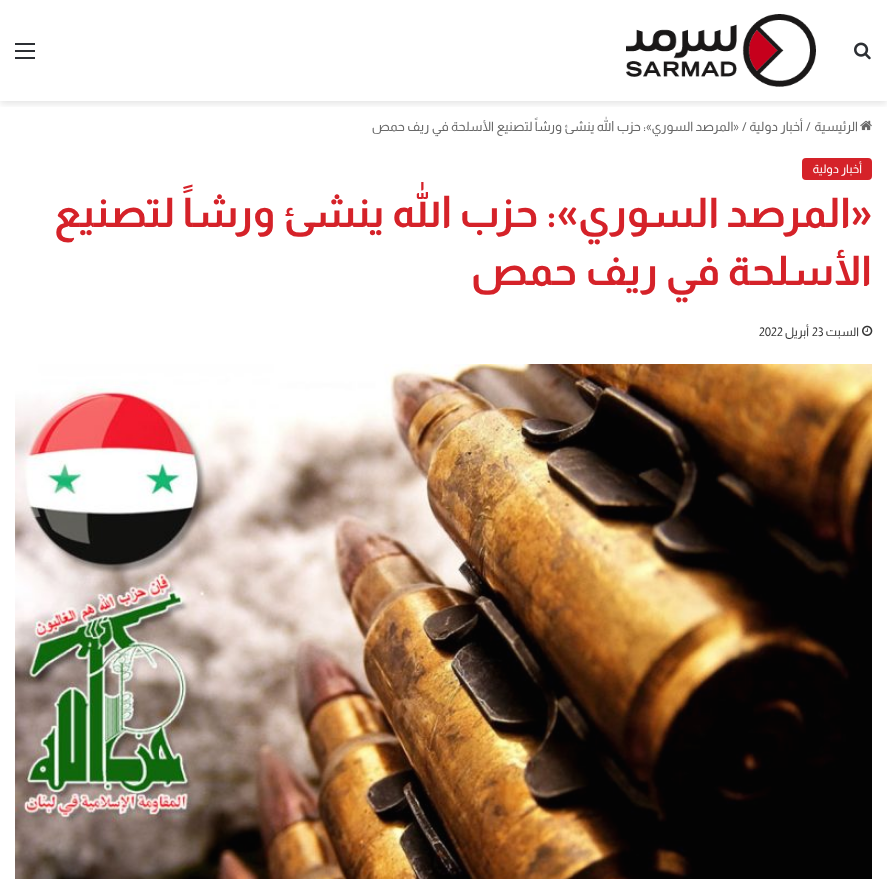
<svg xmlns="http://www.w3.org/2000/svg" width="887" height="879">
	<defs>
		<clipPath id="clip1"><rect x="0" y="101" width="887" height="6" /></clipPath>
	</defs>
	<rect width="100%" height="100%" fill="#FFFFFF" />
	<g clip-path="url(#clip1)">
		<rect x="0" y="3" width="887" height="101" fill="#000000" fill-opacity="0.1" filter="blur(3.5px)" />
	</g>
	<image x="854" y="42" width="17" height="18" href="assets/img1.png" />
	<image x="626" y="14" width="190" height="73" href="assets/img2.png" />
	<rect x="15" y="50" width="20" height="2" fill="#2C2F34" />
	<rect x="15" y="43" width="20" height="2" fill="#2C2F34" />
	<rect x="15" y="57" width="20" height="2" fill="#2C2F34" />
	<image x="860" y="120" width="12" height="11" href="assets/img3.png" />
	<text x="858" y="131" font-family="Almarai" font-size="13" direction="rtl" fill="#686868">الرئيسية</text>
	<text x="806" y="131" font-family="Almarai" font-size="13" fill="#686868">/</text>
	<text x="803" y="131" font-family="Almarai" font-size="13" direction="rtl" fill="#686868">أخبار دولية</text>
	<text x="742" y="131" font-family="Almarai" font-size="13" fill="#686868">/</text>
	<text x="739" y="131" font-family="Almarai" font-size="13" direction="rtl" fill="#686868">«المرصد السوري»: حزب الله ينشئ ورشاً لتصنيع الأسلحة في ريف حمص</text>
	<rect x="802" y="158" width="70" height="22" rx="4" fill="#D52229" />
	<text x="862" y="173" font-family="Almarai" font-size="12" direction="rtl" fill="#FFFFFF">أخبار دولية</text>
	<g font-family="Almarai" font-size="41" font-weight="700" direction="rtl" fill="#D52229">
		<text x="872" y="227">«المرصد السوري»: حزب الله ينشئ ورشاً لتصنيع</text>
		<text x="872" y="285">الأسلحة في ريف حمص</text>
	</g>
	<image x="862" y="325" width="11" height="11" href="assets/img4.png" />
	<text x="859" y="336" font-family="Almarai" font-size="12" direction="rtl" fill="#353535">السبت</text>
	<text x="812" y="336" font-family="Almarai" font-size="12" fill="#353535">23</text>
	<text x="809" y="336" font-family="Almarai" font-size="12" direction="rtl" fill="#353535">أبريل</text>
	<text x="759" y="336" font-family="Almarai" font-size="12" fill="#353535">2022</text>
	<image x="15" y="364" width="857" height="515" href="assets/img5.png" />
</svg>
